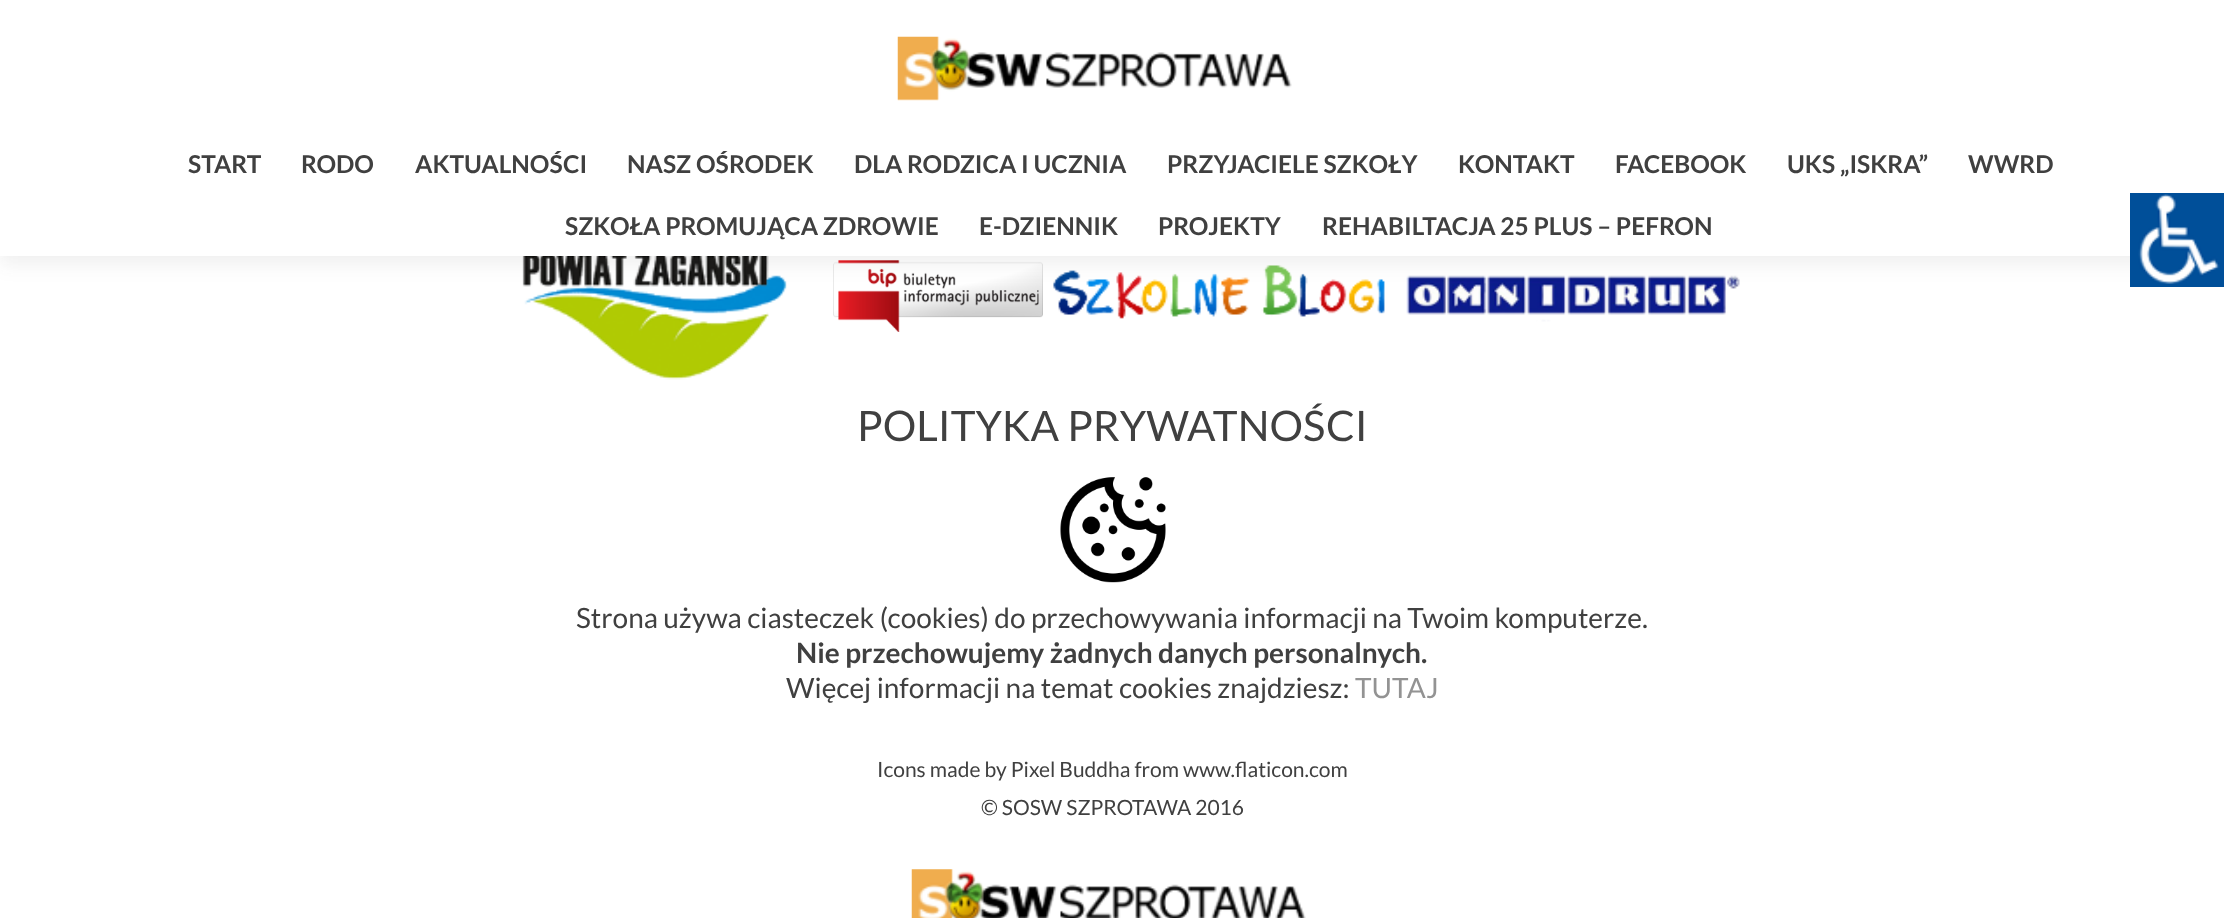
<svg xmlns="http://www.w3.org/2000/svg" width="2224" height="918">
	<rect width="100%" height="100%" fill="#FFFFFF" />
	<image x="522" y="256" width="265" height="124" href="assets/img2.png" />
	<image x="833" y="260" width="210" height="72" href="assets/img3.png" />
	<image x="1053" y="265" width="332" height="54" href="assets/img4.png" />
	<image x="1406" y="275" width="334" height="47" href="assets/img5.png" />
	<rect x="0" y="9" width="2224" height="255" fill="#323232" fill-opacity="0.08" filter="blur(9.5px)" />
	<rect x="0" y="0" width="2224" height="256" fill="#FFFFFF" />
	<image x="897" y="36" width="395" height="65" href="assets/img1.png" />
	<g font-family="Lato" font-size="24.5" font-weight="700" fill="#404040">
		<text x="188" y="173">START</text>
		<text x="301" y="173">RODO</text>
		<text x="415" y="173">AKTUALNOŚCI</text>
		<text x="627" y="173">NASZ OŚRODEK</text>
		<text x="854" y="173">DLA RODZICA I UCZNIA</text>
		<text x="1167" y="173">PRZYJACIELE SZKOŁY</text>
		<text x="1458" y="173">KONTAKT</text>
		<text x="1615" y="173">FACEBOOK</text>
		<text x="1787" y="173">UKS „ISKRA”</text>
		<text x="1968" y="173">WWRD</text>
		<text x="565" y="235">SZKOŁA PROMUJĄCA ZDROWIE</text>
		<text x="979" y="235">E-DZIENNIK</text>
		<text x="1158" y="235">PROJEKTY</text>
		<text x="1322" y="235">REHABILTACJA 25 PLUS – PEFRON</text>
	</g>
	<text x="857" y="441" font-family="Lato" font-size="42" fill="#404040">POLITYKA PRYWATNOŚCI</text>
	<image x="1060" y="477" width="106" height="106" href="assets/img6.png" />
	<text x="576" y="628" font-family="Lato" font-size="28" fill="#404040">Strona używa ciasteczek (cookies) do przechowywania informacji na Twoim komputerze.</text>
	<text x="796" y="663" font-family="Lato" font-size="28" font-weight="700" fill="#404040">Nie przechowujemy żadnych danych personalnych.</text>
	<text x="786" y="698" font-family="Lato" font-size="28" fill="#404040">Więcej informacji na temat cookies znajdziesz:</text>
	<text x="1355" y="698" font-family="Lato" font-size="28" fill="#939393">TUTAJ</text>
	<g font-family="Lato" font-size="21" fill="#404040">
		<text x="877" y="777">Icons made by Pixel Buddha from www.flaticon.com</text>
		<text x="981" y="815">© SOSW SZPROTAWA 2016</text>
	</g>
	<image x="911" y="869" width="395" height="49" href="assets/img7.png" />
	<rect x="2130" y="193" width="94" height="94" fill="#004F99" />
	<image x="2138" y="194" width="82" height="90" href="assets/img8.png" />
</svg>
